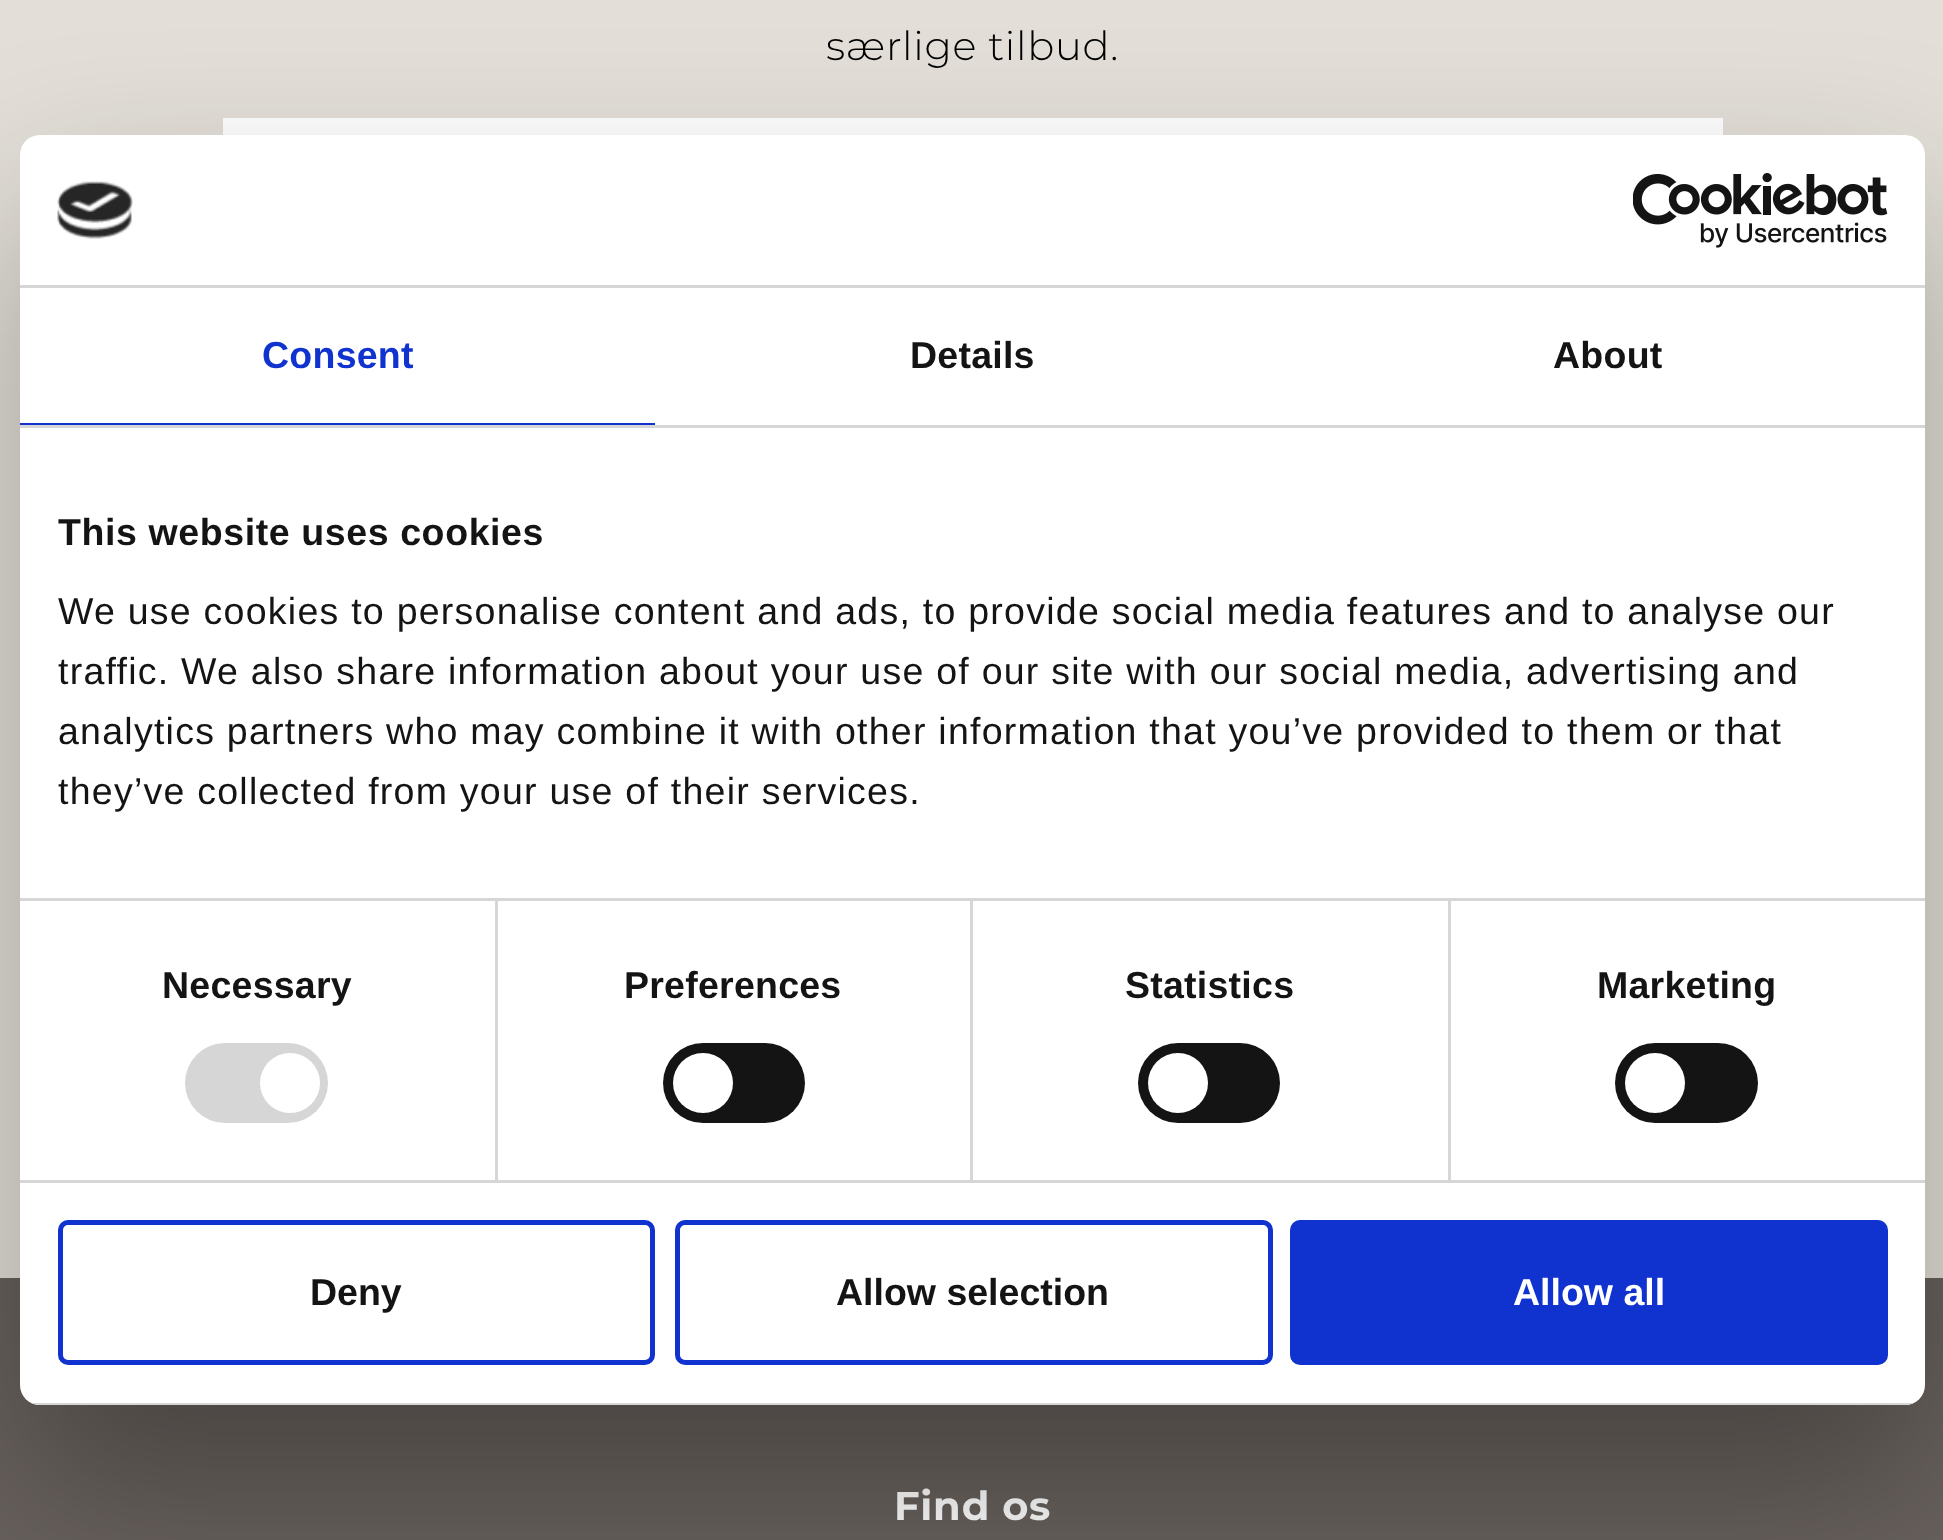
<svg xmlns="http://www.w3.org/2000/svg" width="1943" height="1540">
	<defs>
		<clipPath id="clip1"><rect x="20" y="135" width="1905" height="1270" rx="20" /></clipPath>
	</defs>
	<rect width="100%" height="100%" fill="#68615D" />
	<rect x="0" y="0" width="1943" height="1278" fill="#E3DFD8" />
	<text x="826" y="60" font-family="Montserrat" font-size="40" font-weight="300" letter-spacing="0.75" fill="#000000">særlige tilbud.</text>
	<rect x="223" y="118" width="1500" height="17" fill="#FFFFFF" />
	<text x="894" y="1520" font-family="Montserrat" font-size="40" font-weight="700" letter-spacing="0.75" fill="#FFFFFF">Find os</text>
	<rect x="20" y="215" width="1905" height="1270" rx="20" fill="#000000" fill-opacity="0.3" filter="blur(85px)" />
	<rect x="20" y="135" width="1905" height="1270" rx="20" fill="#FFFFFF" />
	<rect x="20" y="285" width="1905" height="3" fill="#D6D6D6" />
	<image x="57" y="181" width="76" height="58" href="assets/img1.png" />
	<image x="1633" y="173" width="255" height="75" href="assets/img2.png" />
	<rect x="20" y="425" width="1905" height="3" fill="#D6D6D6" />
	<rect x="20" y="423" width="635" height="2" fill="#1032CF" />
	<text x="262" y="368" font-family="Liberation Sans" font-size="37.5" font-weight="700" letter-spacing="0.25" fill="#1032CF">Consent</text>
	<g font-family="Liberation Sans" font-size="37.5" font-weight="700" letter-spacing="0.25" fill="#141414">
		<text x="910" y="368">Details</text>
		<text x="1553" y="368">About</text>
	</g>
	<rect x="495" y="900" width="3" height="280" fill="#D6D6D6" />
	<rect x="970" y="900" width="3" height="280" fill="#D6D6D6" />
	<rect x="1448" y="900" width="3" height="280" fill="#D6D6D6" />
	<rect x="20" y="898" width="1905" height="3" fill="#D6D6D6" />
	<text x="58" y="545" font-family="Liberation Sans" font-size="37.5" font-weight="700" letter-spacing="0.6" fill="#141414">This website uses cookies</text>
	<g font-family="Liberation Sans" font-size="37.5" letter-spacing="1.25" fill="#141414">
		<text x="58" y="624">We use cookies to personalise content and ads, to provide social media features and to analyse our</text>
		<text x="58" y="684">traffic. We also share information about your use of our site with our social media, advertising and</text>
		<text x="58" y="744">analytics partners who may combine it with other information that you’ve provided to them or that</text>
		<text x="58" y="804">they’ve collected from your use of their services.</text>
	</g>
	<rect x="20" y="1180" width="1905" height="3" fill="#D6D6D6" />
	<text x="162" y="998" font-family="Liberation Sans" font-size="37.5" font-weight="700" letter-spacing="0.25" fill="#141414">Necessary</text>
	<rect x="185" y="1043" width="143" height="80" rx="40" fill="#D6D6D6" />
	<circle cx="290" cy="1083" r="30" fill="#FFFFFF" />
	<text x="624" y="998" font-family="Liberation Sans" font-size="37.5" font-weight="700" letter-spacing="0.25" fill="#141414">Preferences</text>
	<rect x="663" y="1043" width="142" height="80" rx="40" fill="#141414" />
	<circle cx="703" cy="1083" r="30" fill="#FFFFFF" />
	<text x="1125" y="998" font-family="Liberation Sans" font-size="37.5" font-weight="700" letter-spacing="0.25" fill="#141414">Statistics</text>
	<rect x="1138" y="1043" width="142" height="80" rx="40" fill="#141414" />
	<circle cx="1178" cy="1083" r="30" fill="#FFFFFF" />
	<text x="1597" y="998" font-family="Liberation Sans" font-size="37.5" font-weight="700" letter-spacing="0.25" fill="#141414">Marketing</text>
	<rect x="1615" y="1043" width="143" height="80" rx="40" fill="#141414" />
	<circle cx="1655" cy="1083" r="30" fill="#FFFFFF" />
	<g clip-path="url(#clip1)">
		<rect x="31" y="1403" width="1883" height="2" fill="#D6D6D6" />
	</g>
	<rect x="60.5" y="1222.5" width="592" height="140" rx="7.5" fill="none" stroke="#1032CF" stroke-width="5" />
	<text x="310" y="1305" font-family="Liberation Sans" font-size="37.5" font-weight="700" fill="#141414">Deny</text>
	<rect x="677.5" y="1222.5" width="593" height="140" rx="7.5" fill="none" stroke="#1032CF" stroke-width="5" />
	<text x="836" y="1305" font-family="Liberation Sans" font-size="37.5" font-weight="700" fill="#141414">Allow selection</text>
	<rect x="1292.5" y="1222.5" width="593" height="140" rx="7.5" fill="#1032CF" stroke="#1032CF" stroke-width="5" />
	<text x="1513" y="1305" font-family="Liberation Sans" font-size="37.5" font-weight="700" fill="#FFFFFF">Allow all</text>
</svg>
